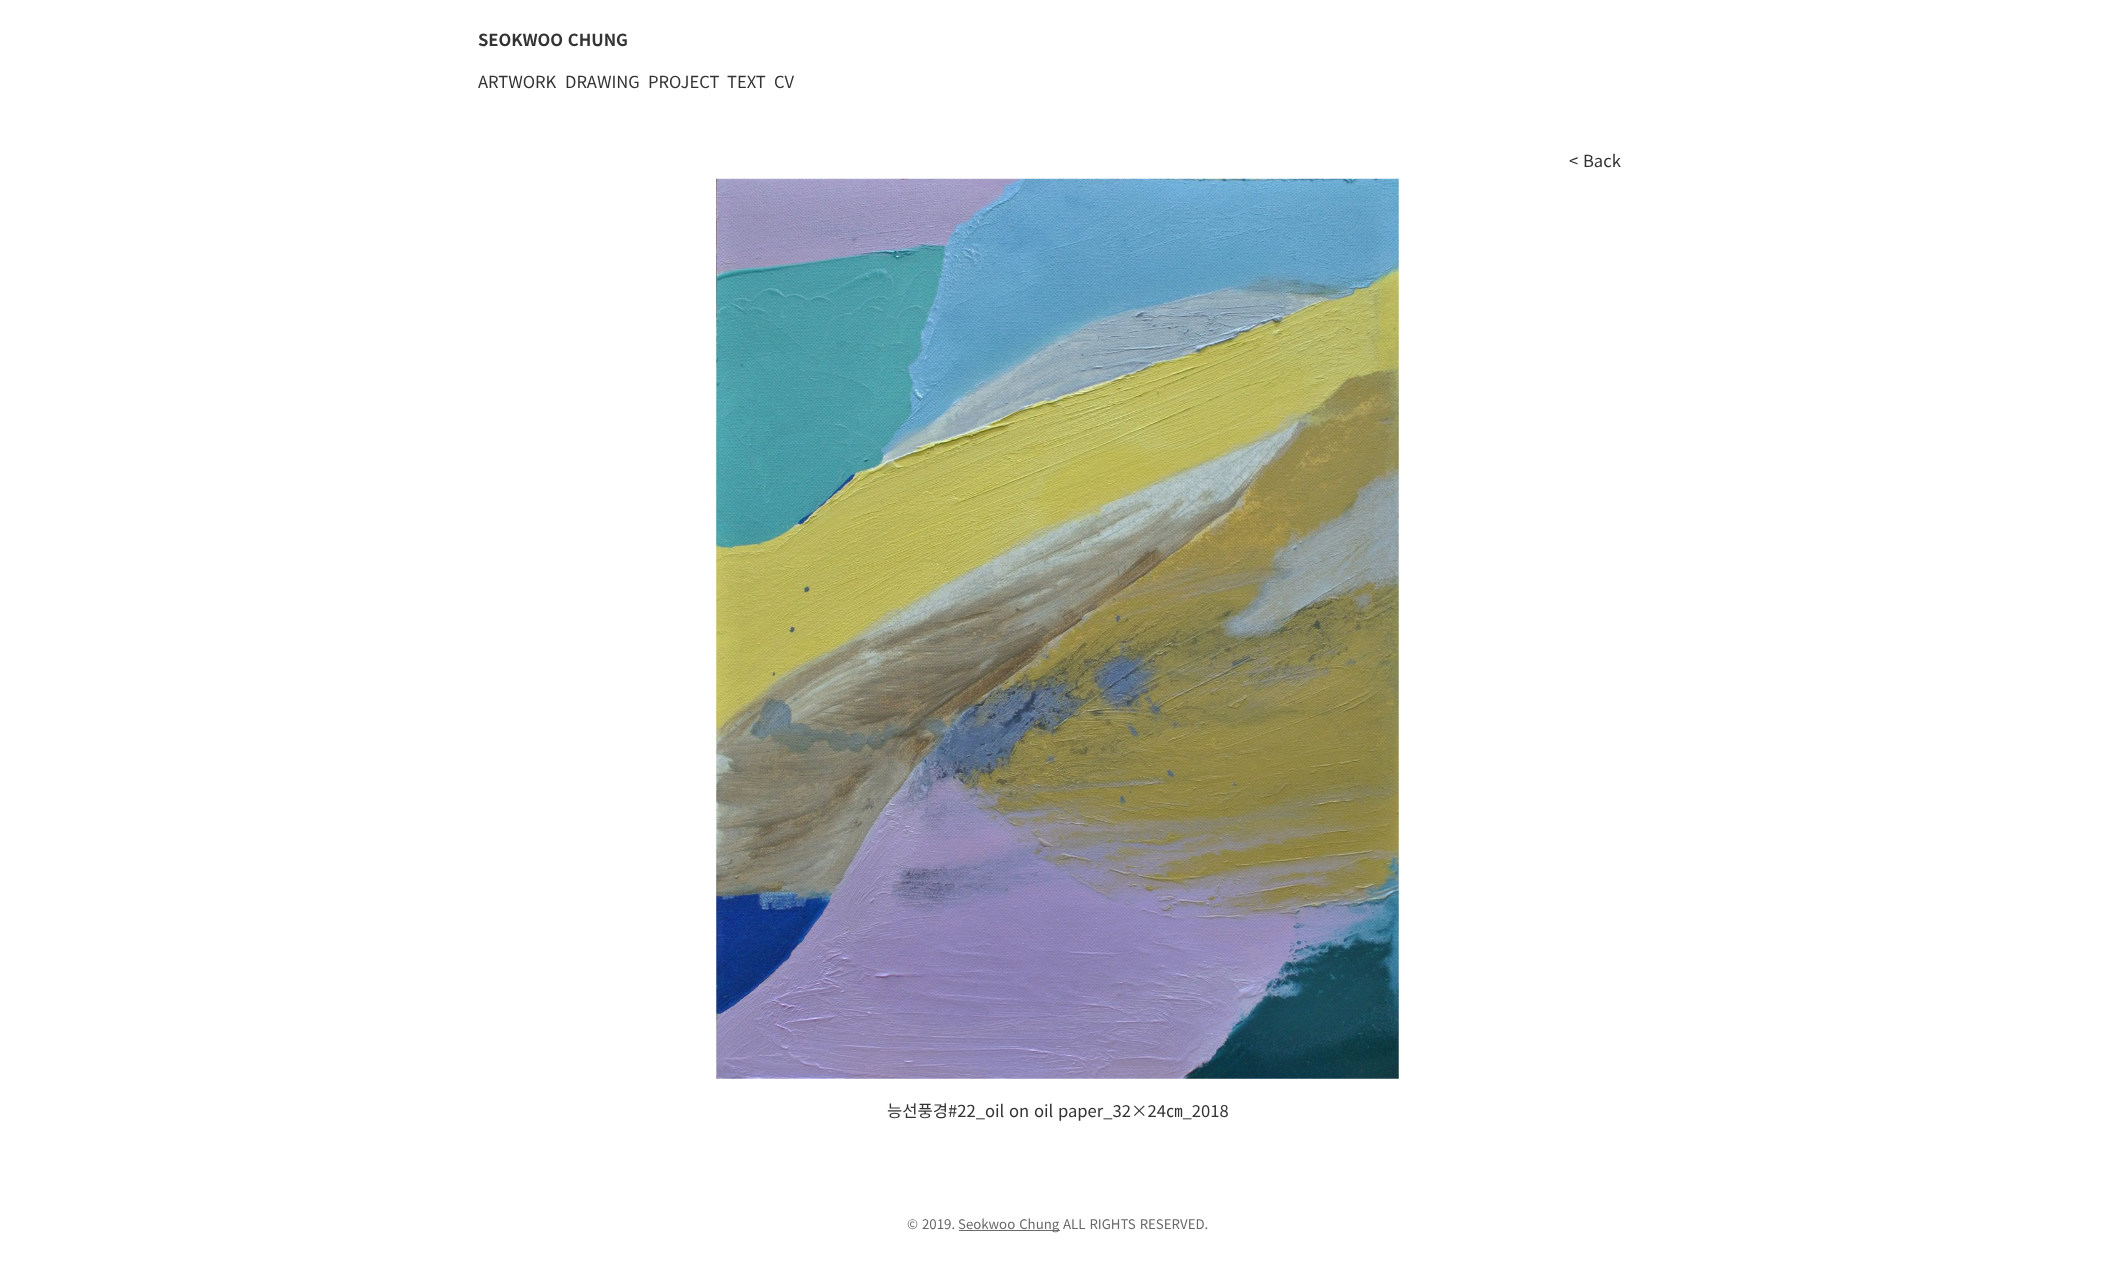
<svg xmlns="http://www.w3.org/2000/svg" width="2115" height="1283">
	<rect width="100%" height="100%" fill="#FFFFFF" />
	<text x="478" y="46" word-spacing="1" font-family="Noto Sans KR" font-size="16.6" font-weight="700" fill="#333333">SEOKWOO CHUNG</text>
	<g font-family="Noto Sans KR" font-size="16.6" fill="#333333">
		<text x="478" y="88">ARTWORK</text>
		<text x="565" y="88">DRAWING</text>
		<text x="648" y="88">PROJECT</text>
		<text x="727" y="88">TEXT</text>
		<text x="774" y="88">CV</text>
		<text x="1569" y="167" word-spacing="1">&lt; Back</text>
	</g>
	<image x="716" y="178" width="683" height="901" href="assets/img1.png" />
	<text x="887" y="1117" word-spacing="1" font-family="Noto Sans KR" font-size="16.6" fill="#333333">능선풍경#22_oil on oil paper_32×24㎝_2018</text>
	<text x="907" y="1229" word-spacing="1" font-family="Noto Sans KR" font-size="13.25" fill="#696969">© 2019.</text>
	<rect x="959" y="1230" width="101" height="1" fill="#696969" />
	<g font-family="Noto Sans KR" font-size="13.25" fill="#696969">
		<text x="958" y="1229" word-spacing="1">Seokwoo Chung</text>
		<text x="1063" y="1229" word-spacing="1">ALL RIGHTS RESERVED.</text>
	</g>
</svg>
